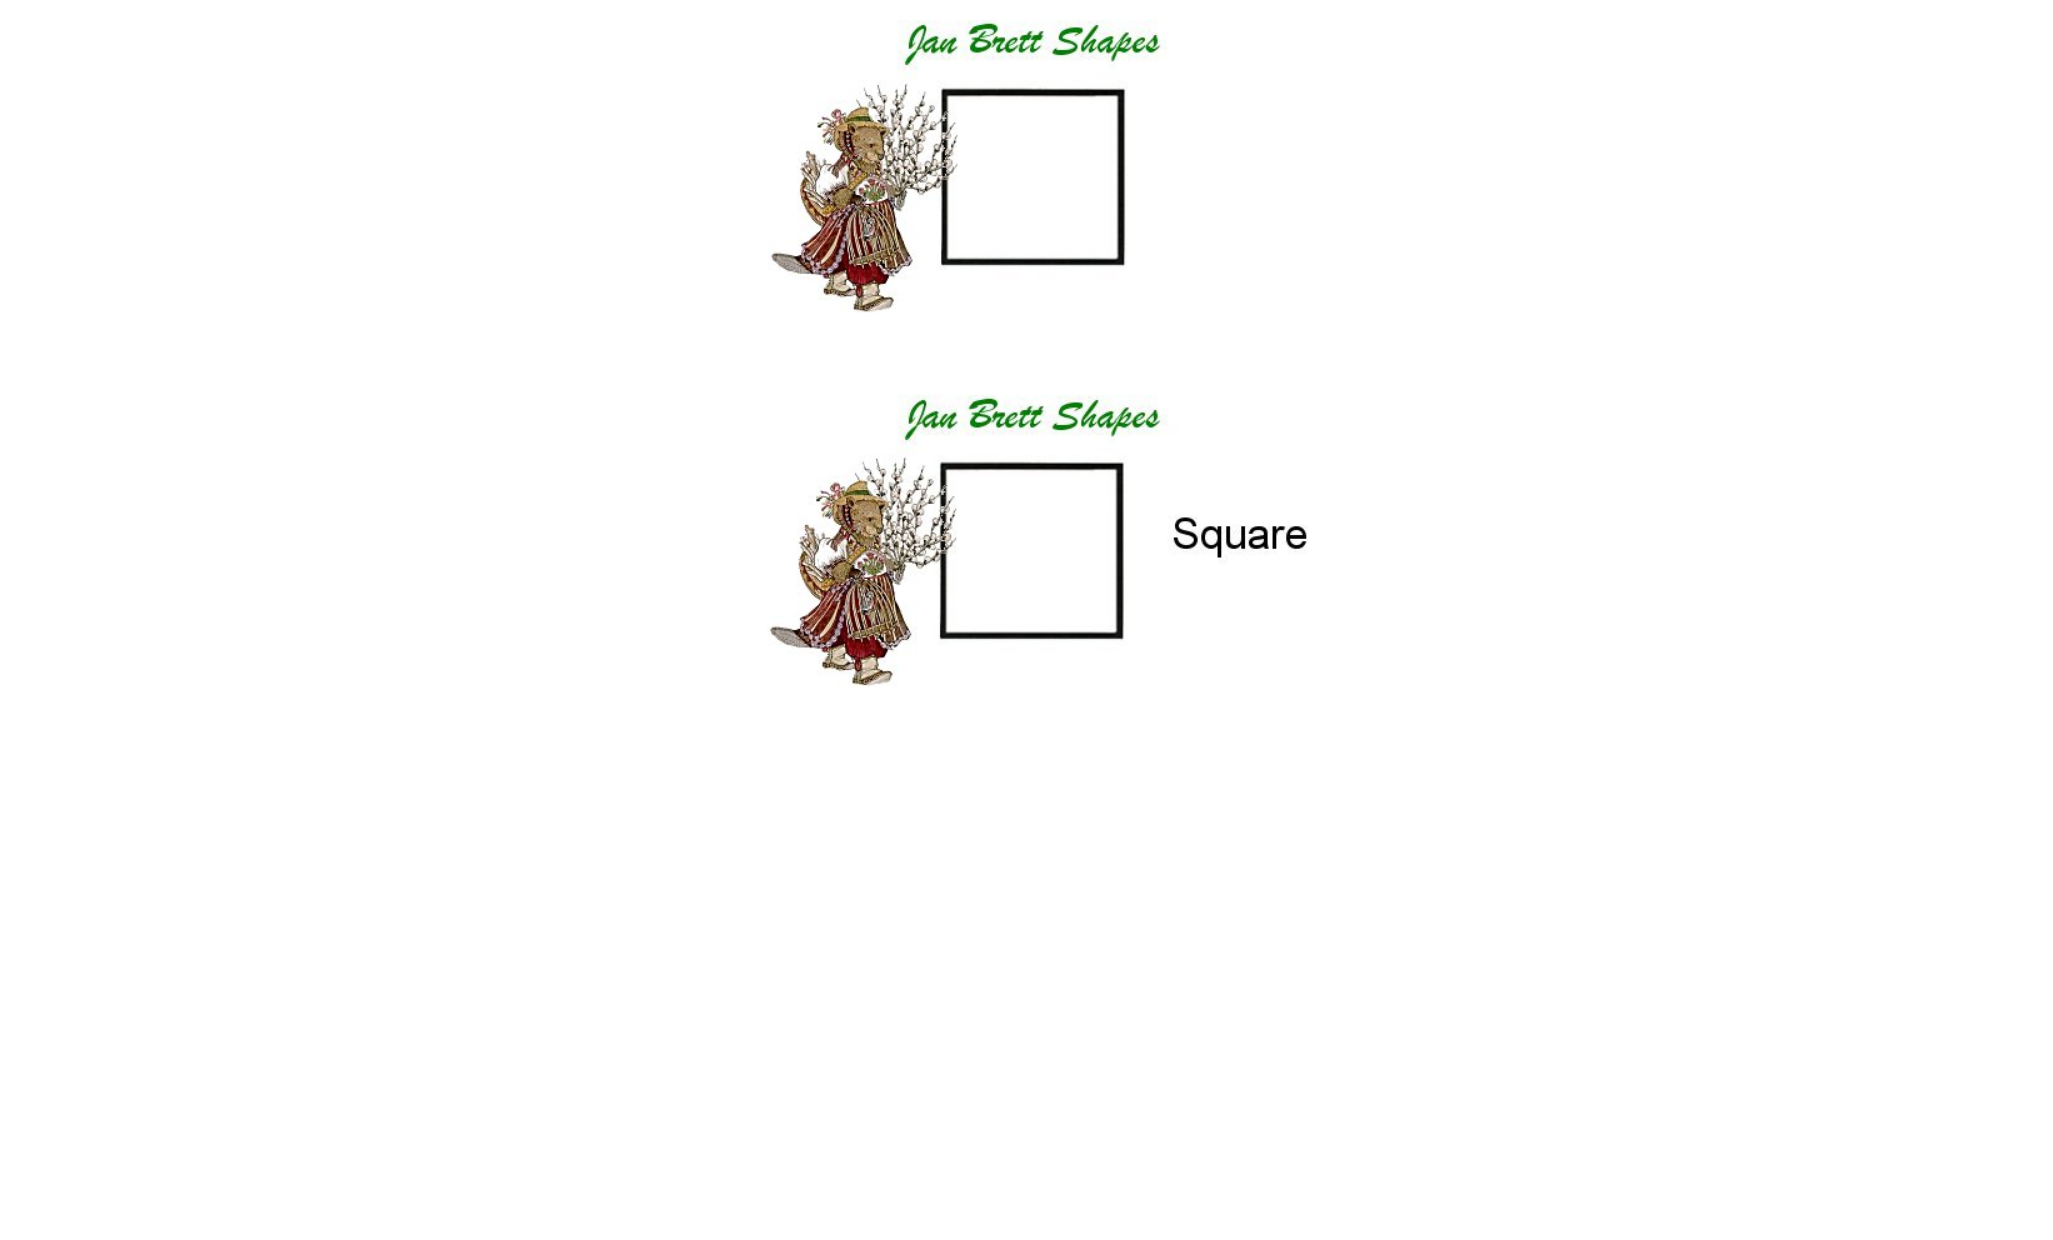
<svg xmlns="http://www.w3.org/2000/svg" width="2053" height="1240">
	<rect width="100%" height="100%" fill="#FFFFFF" />
	<image x="767" y="19" width="400" height="294" href="assets/img1.png" />
	<image x="767" y="394" width="541" height="294" href="assets/img2.png" />
</svg>
